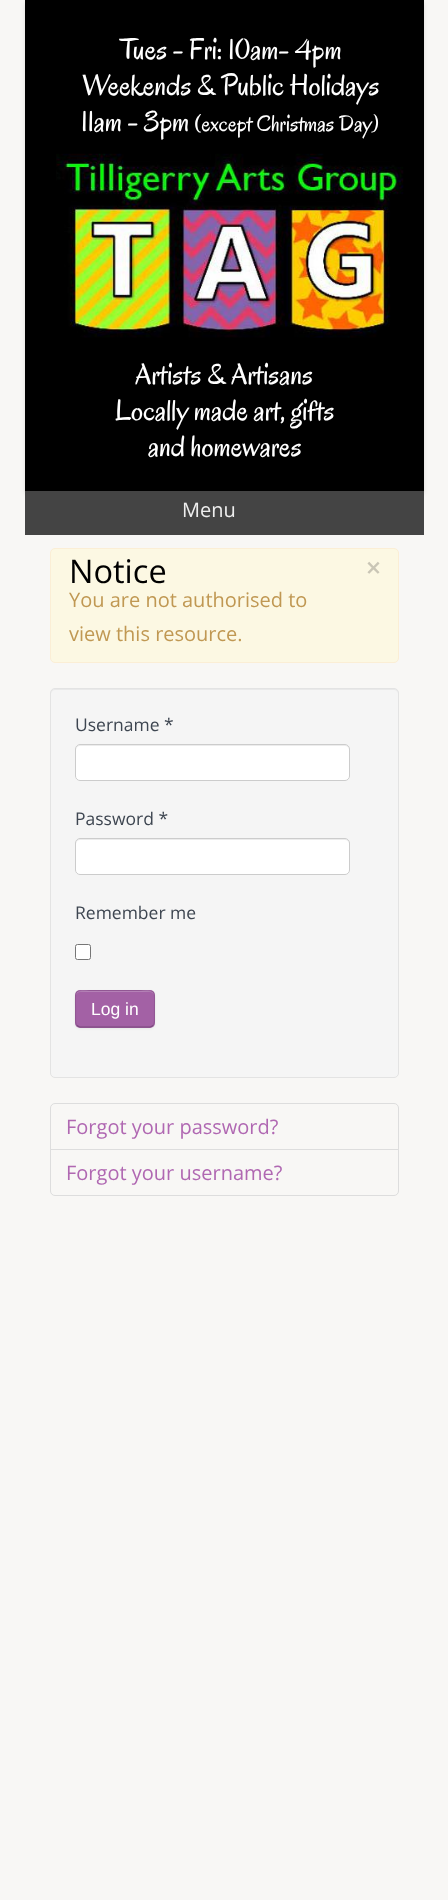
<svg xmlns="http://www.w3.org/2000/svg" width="448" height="1900">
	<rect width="100%" height="100%" fill="#F8F7F5" />
	<rect x="25" y="3" width="399" height="491" fill="#000000" fill-opacity="0.1" filter="blur(2px)" />
	<rect x="25" y="0" width="399" height="491" fill="#000000" />
	<g font-family="Oregano" font-size="30" fill="#FFFFFF">
		<text x="120" y="59">Tues - Fri: 10am- 4pm</text>
		<text x="82" y="95">Weekends &amp; Public Holidays</text>
		<text x="81" y="131">11am - 3pm</text>
	</g>
	<text x="194" y="131" font-family="Oregano" font-size="23.25" fill="#FFFFFF">(except Christmas Day)</text>
	<image x="56" y="153" width="348" height="185" href="assets/img1.png" />
	<g font-family="Oregano" font-size="30" fill="#FFFFFF">
		<text x="135" y="384">Artists &amp; Artisans</text>
		<text x="115" y="420">Locally made art, gifts</text>
		<text x="148" y="456">and homewares</text>
	</g>
	<rect x="25" y="491" width="399" height="44" fill="#444444" />
	<text x="182" y="517" font-family="Open Sans" font-size="20" fill="#EEEEEE">Menu</text>
	<rect x="50.5" y="548.5" width="348" height="114" rx="4.5" fill="#FCF8E3" stroke="#FBEED5" />
	<text x="69" y="583" font-family="Open Sans" font-size="32.5" fill="#000000">Notice</text>
	<text x="366" y="577" font-family="Open Sans" font-size="25" font-weight="700" fill="#CAC6B6">×</text>
	<g font-family="Open Sans" font-size="20" fill="#C09853">
		<text x="69" y="607">You are not authorised to</text>
		<text x="69" y="641">view this resource.</text>
	</g>
	<rect x="50" y="688" width="349" height="390" rx="5" fill="#F5F5F5" />
	<path d="M55 690H394C396 690 398 692 398 694V693C398 691 396 689 394 689H55C53 689 51 691 51 693V694C51 692 53 690 55 690Z" fill="#E9E9E9" />
	<rect x="50.5" y="688.5" width="348" height="389" rx="4.5" fill="none" stroke="#E3E3E3" />
	<text x="75" y="731" font-family="Open Sans" font-size="17.5" fill="#3E4651">Username *</text>
	<rect x="75" y="744" width="275" height="37" rx="5" fill="#FFFFFF" />
	<path d="M80 746H345C347 746 349 748 349 750C349 747 348 745 345 745H80C77 745 76 747 76 750C76 748 78 746 80 746Z" fill="#ECECEC" />
	<rect x="75.5" y="744.5" width="274" height="36" rx="4.5" fill="none" stroke="#CCCCCC" />
	<text x="75" y="825" font-family="Open Sans" font-size="17.5" fill="#3E4651">Password *</text>
	<rect x="75" y="838" width="275" height="37" rx="5" fill="#FFFFFF" />
	<path d="M80 840H345C347 840 349 842 349 844C349 841 348 839 345 839H80C77 839 76 841 76 844C76 842 78 840 80 840Z" fill="#ECECEC" />
	<rect x="75.5" y="838.5" width="274" height="36" rx="4.5" fill="none" stroke="#CCCCCC" />
	<text x="75" y="919" font-family="Open Sans" font-size="17.5" fill="#3E4651">Remember me</text>
	<rect x="75.5" y="944.5" width="15" height="15" rx="2" fill="#FFFFFF" stroke="#767676" />
	<rect x="75" y="991" width="80" height="38" rx="5" fill="#000000" fill-opacity="0.05" filter="blur(1px)" />
	<rect x="75" y="990" width="80" height="38" rx="5" fill="#A361A5" />
	<path d="M80 992H150C152 992 154 994 154 996C154 988 143 991 138 991H92C87 991 76 988 76 996C76 994 78 992 80 992Z" fill="#B581B7" />
	<path d="M153 1025.5L150.5 1027H79.5L77 1025.5" fill="none" stroke="#000000" stroke-opacity="0.25" stroke-width="1.2" />
	<path d="M77 1025.5C75 1023.5 75.5 1020.5 75.5 1018V1009C75.5 989.5 72.5 990.5 91.5 990.5H138.5C157.5 990.5 154.5 989.5 154.5 1009V1018C154.5 1020.5 155 1023.5 153 1025.5" fill="none" stroke="#000000" stroke-opacity="0.1" stroke-width="1.2" />
	<text x="91" y="1015" font-family="Liberation Sans" font-size="17.5" fill="#FFFFFF">Log in</text>
	<path d="M55 1103.5H394C396.5 1103.5 398.5 1105.5 398.5 1108V1149.5H50.5V1108C50.5 1105.5 52.5 1103.5 55 1103.5Z" fill="none" stroke="#DDDDDD" />
	<text x="66" y="1134" font-family="Open Sans" font-size="20" fill="#B068B2">Forgot your password?</text>
	<path d="M50.5 1149.5H398.5V1191C398.5 1193.5 396.5 1195.5 394 1195.5H55C52.5 1195.5 50.5 1193.5 50.5 1191Z" fill="none" stroke="#DDDDDD" />
	<text x="66" y="1180" font-family="Open Sans" font-size="20" fill="#B068B2">Forgot your username?</text>
</svg>
